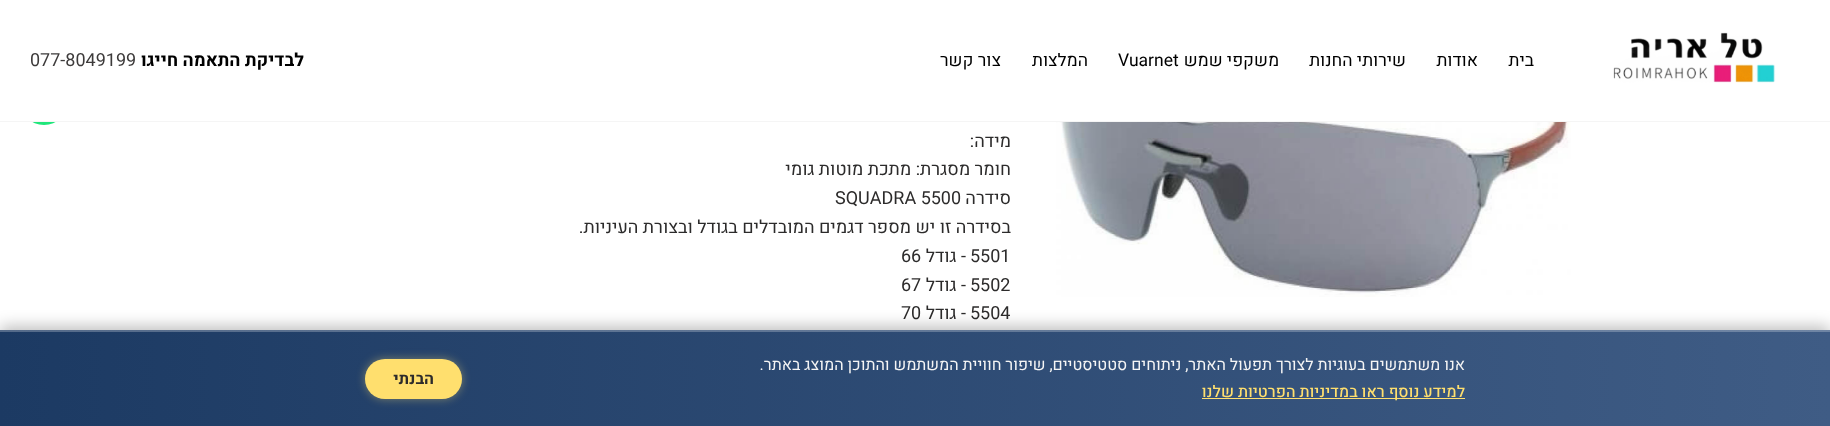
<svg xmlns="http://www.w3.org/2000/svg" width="1830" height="426">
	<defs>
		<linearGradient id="g1" gradientUnits="userSpaceOnUse" x1="0" y1="379" x2="1830" y2="379"><stop offset="0" stop-color="#1C3A63" /><stop offset="1" stop-color="#3F5C85" /></linearGradient>
		<linearGradient id="g2" gradientUnits="userSpaceOnUse" x1="0" y1="379" x2="1830" y2="379"><stop offset="0" stop-color="#556B8A" /><stop offset="1" stop-color="#6F85A4" /></linearGradient>
	</defs>
	<rect width="100%" height="100%" fill="#FFFFFF" />
	<circle cx="44" cy="101" r="24" fill="#1FE67A" />
	<rect x="20" y="77" width="48" height="44" fill="#FFFFFF" />
	<rect x="0" y="121" width="1830" height="1" fill="#F5F5F5" />
	<image x="1613" y="32" width="163" height="51" href="assets/img1.png" />
	<g font-family="Heebo" font-size="17.5" direction="rtl" fill="#000000">
		<text x="1534" y="66">בית</text>
		<text x="1478" y="66">אודות</text>
		<text x="1406" y="66">שירותי החנות</text>
		<text x="1279" y="66">משקפי שמש</text>
	</g>
	<text x="1118" y="66" font-family="Heebo" font-size="17.5" fill="#000000">Vuarnet</text>
	<g font-family="Heebo" font-size="17.5" direction="rtl" fill="#000000">
		<text x="1088" y="66">המלצות</text>
		<text x="1001" y="66">צור קשר</text>
	</g>
	<text x="304" y="66" font-family="Heebo" font-size="18" font-weight="700" direction="rtl" fill="#000000">לבדיקת התאמה חייגו</text>
	<text x="30" y="66" font-family="Heebo" font-size="18" fill="#3D3B3B">077-8049199</text>
	<image x="1056" y="122" width="515" height="175" href="assets/img2.png" />
	<g font-family="Heebo" font-size="18" direction="rtl" fill="#2C2B2B">
		<text x="1011" y="147">מידה:</text>
		<text x="1011" y="175">חומר מסגרת: מתכת מוטות גומי</text>
		<text x="1011" y="204">סידרה</text>
	</g>
	<text x="835" y="204" font-family="Heebo" font-size="18" fill="#2C2B2B">SQUADRA 5500</text>
	<text x="1011" y="233" font-family="Heebo" font-size="18" direction="rtl" fill="#2C2B2B">בסידרה זו יש מספר דגמים המובדלים בגודל ובצורת העיניות.</text>
	<text x="970" y="262" font-family="Heebo" font-size="18" fill="#2C2B2B">5501</text>
	<text x="966" y="262" font-family="Heebo" font-size="18" direction="rtl" fill="#2C2B2B">- גודל</text>
	<g font-family="Heebo" font-size="18" fill="#2C2B2B">
		<text x="901" y="262">66</text>
		<text x="970" y="291">5502</text>
	</g>
	<text x="966" y="291" font-family="Heebo" font-size="18" direction="rtl" fill="#2C2B2B">- גודל</text>
	<g font-family="Heebo" font-size="18" fill="#2C2B2B">
		<text x="901" y="291">67</text>
		<text x="970" y="319">5504</text>
	</g>
	<text x="966" y="319" font-family="Heebo" font-size="18" direction="rtl" fill="#2C2B2B">- גודל</text>
	<text x="901" y="319" font-family="Heebo" font-size="18" fill="#2C2B2B">70</text>
	<rect x="0" y="326" width="1830" height="96" fill="#000000" fill-opacity="0.25" filter="blur(7.5px)" />
	<rect x="0" y="332" width="1830" height="94" fill="url(#g1)" />
	<rect x="0" y="330" width="1830" height="2" fill="url(#g2)" />
	<text x="1465" y="370" font-family="Heebo" font-size="16" direction="rtl" fill="#F5F5F5">אנו משתמשים בעוגיות לצורך תפעול האתר, ניתוחים סטטיסטיים, שיפור חוויית המשתמש והתוכן המוצג באתר.</text>
	<rect x="1202" y="398" width="263" height="1" fill="#FFDF6E" />
	<text x="1465" y="397" font-family="Heebo" font-size="16" font-weight="500" direction="rtl" fill="#FFDF6E">למידע נוסף ראו במדיניות הפרטיות שלנו</text>
	<rect x="365" y="359" width="97" height="40" rx="20" fill="#FFDF6E" fill-opacity="0.4" filter="blur(5px)" />
	<rect x="365" y="359" width="97" height="40" rx="20" fill="#FFDF6E" />
	<text x="434" y="384" font-family="Heebo" font-size="16" font-weight="700" direction="rtl" fill="#2C2B2B">הבנתי</text>
</svg>
